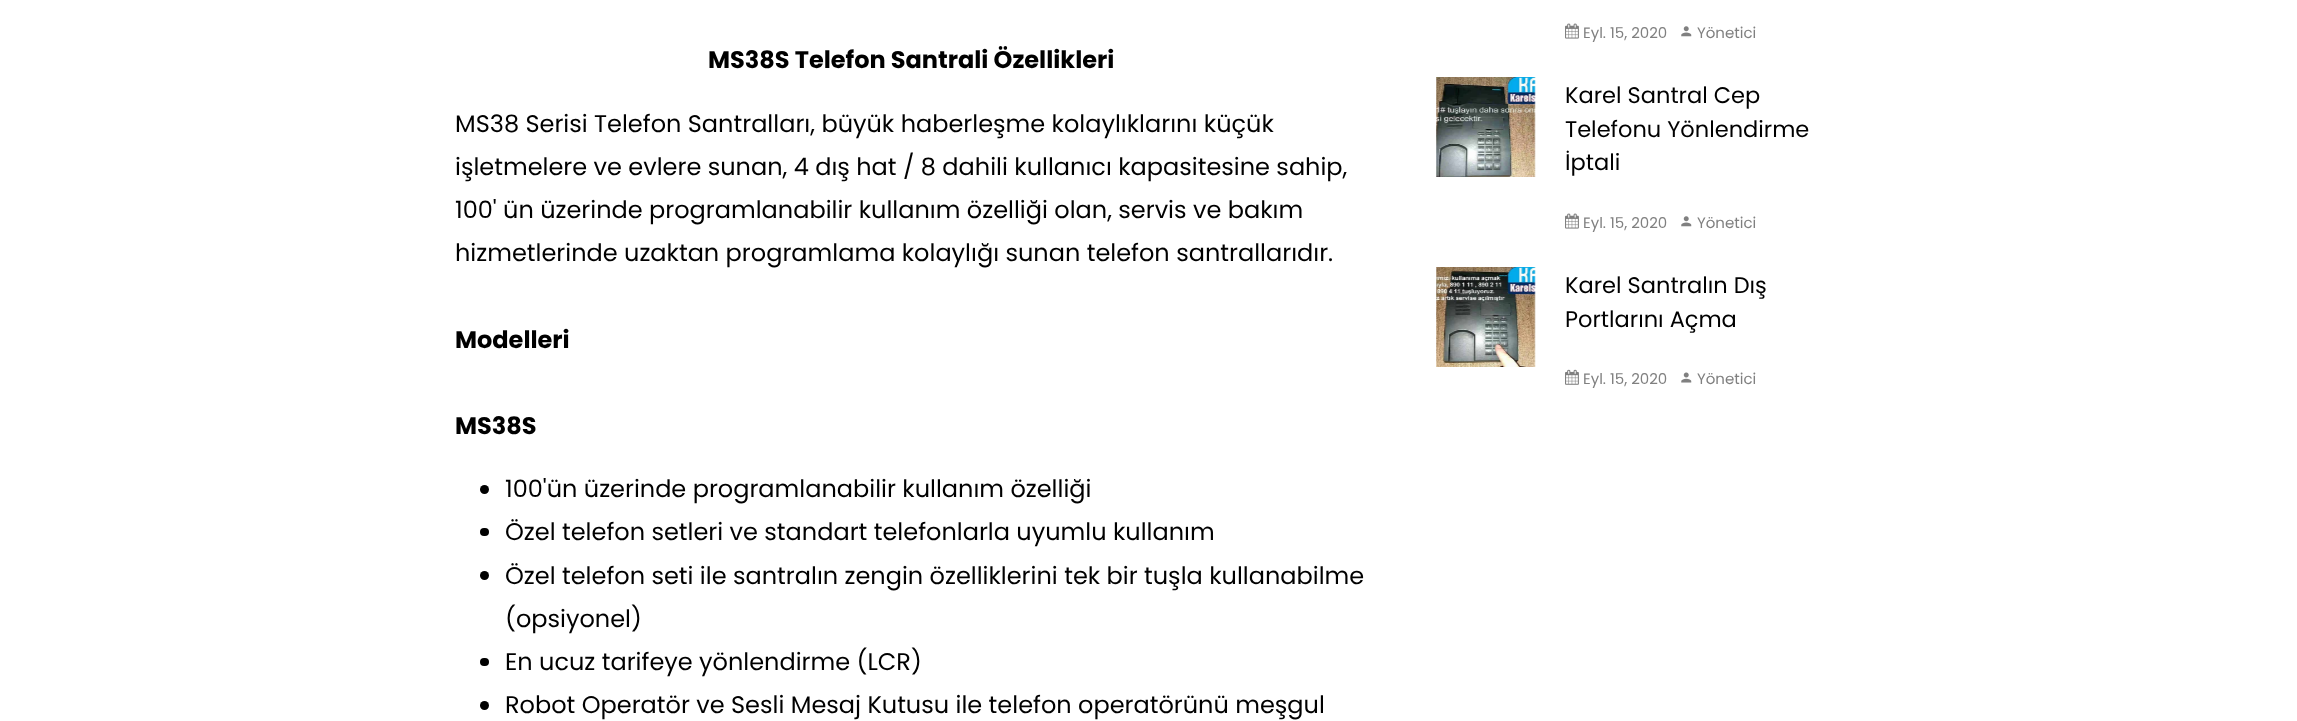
<svg xmlns="http://www.w3.org/2000/svg" width="2297" height="721">
	<rect width="100%" height="100%" fill="#FFFFFF" />
	<text x="708" y="68" font-family="Poppins" font-size="24" font-weight="700" fill="#000000">MS38S Telefon Santrali Özellikleri</text>
	<g font-family="Poppins" font-size="24" fill="#000000">
		<text x="455" y="132">MS38 Serisi Telefon Santralları, büyük haberleşme kolaylıklarını küçük</text>
		<text x="455" y="175">işletmelere ve evlere sunan, 4 dış hat / 8 dahili kullanıcı kapasitesine sahip,</text>
		<text x="455" y="218">100' ün üzerinde programlanabilir kullanım özelliği olan, servis ve bakım</text>
		<text x="455" y="261">hizmetlerinde uzaktan programlama kolaylığı sunan telefon santrallarıdır.</text>
	</g>
	<g font-family="Poppins" font-size="24" font-weight="700" fill="#000000">
		<text x="455" y="348">Modelleri</text>
		<text x="455" y="434">MS38S</text>
	</g>
	<circle cx="484.5" cy="489.5" r="4.5" fill="#000000" />
	<text x="505" y="497" font-family="Poppins" font-size="24" fill="#000000">100'ün üzerinde programlanabilir kullanım özelliği</text>
	<rect x="480" y="528" width="9" height="8" rx="4" fill="#000000" />
	<text x="505" y="540" font-family="Poppins" font-size="24" fill="#000000">Özel telefon setleri ve standart telefonlarla uyumlu kullanım</text>
	<circle cx="484.5" cy="575.5" r="4.5" fill="#000000" />
	<g font-family="Poppins" font-size="24" fill="#000000">
		<text x="505" y="584">Özel telefon seti ile santralın zengin özelliklerini tek bir tuşla kullanabilme</text>
		<text x="505" y="627">(opsiyonel)</text>
	</g>
	<rect x="480" y="658" width="9" height="8" rx="4" fill="#000000" />
	<text x="505" y="670" font-family="Poppins" font-size="24" fill="#000000">En ucuz tarifeye yönlendirme (LCR)</text>
	<circle cx="484.5" cy="705.5" r="4.5" fill="#000000" />
	<text x="505" y="713" font-family="Poppins" font-size="24" fill="#000000">Robot Operatör ve Sesli Mesaj Kutusu ile telefon operatörünü meşgul</text>
	<image x="1565" y="23" width="14" height="16" href="assets/img1.png" />
	<text x="1583" y="38" font-family="Poppins" font-size="15" fill="#808080">Eyl. 15, 2020</text>
	<image x="1681" y="26" width="11" height="11" href="assets/img2.png" />
	<text x="1697" y="38" font-family="Poppins" font-size="15" fill="#808080">Yönetici</text>
	<image x="1436" y="77" width="100" height="100" href="assets/img3.png" />
	<g font-family="Poppins" font-size="22.5" fill="#000000">
		<text x="1565" y="103">Karel Santral Cep</text>
		<text x="1565" y="137">Telefonu Yönlendirme</text>
		<text x="1565" y="170">İptali</text>
	</g>
	<image x="1565" y="213" width="14" height="16" href="assets/img1.png" />
	<text x="1583" y="228" font-family="Poppins" font-size="15" fill="#808080">Eyl. 15, 2020</text>
	<image x="1681" y="216" width="11" height="11" href="assets/img2.png" />
	<text x="1697" y="228" font-family="Poppins" font-size="15" fill="#808080">Yönetici</text>
	<image x="1436" y="267" width="100" height="100" href="assets/img4.png" />
	<g font-family="Poppins" font-size="22.5" fill="#000000">
		<text x="1565" y="293">Karel Santralın Dış</text>
		<text x="1565" y="327">Portlarını Açma</text>
	</g>
	<image x="1565" y="369" width="14" height="16" href="assets/img5.png" />
	<text x="1583" y="384" font-family="Poppins" font-size="15" fill="#808080">Eyl. 15, 2020</text>
	<image x="1681" y="372" width="11" height="11" href="assets/img6.png" />
	<text x="1697" y="384" font-family="Poppins" font-size="15" fill="#808080">Yönetici</text>
</svg>
